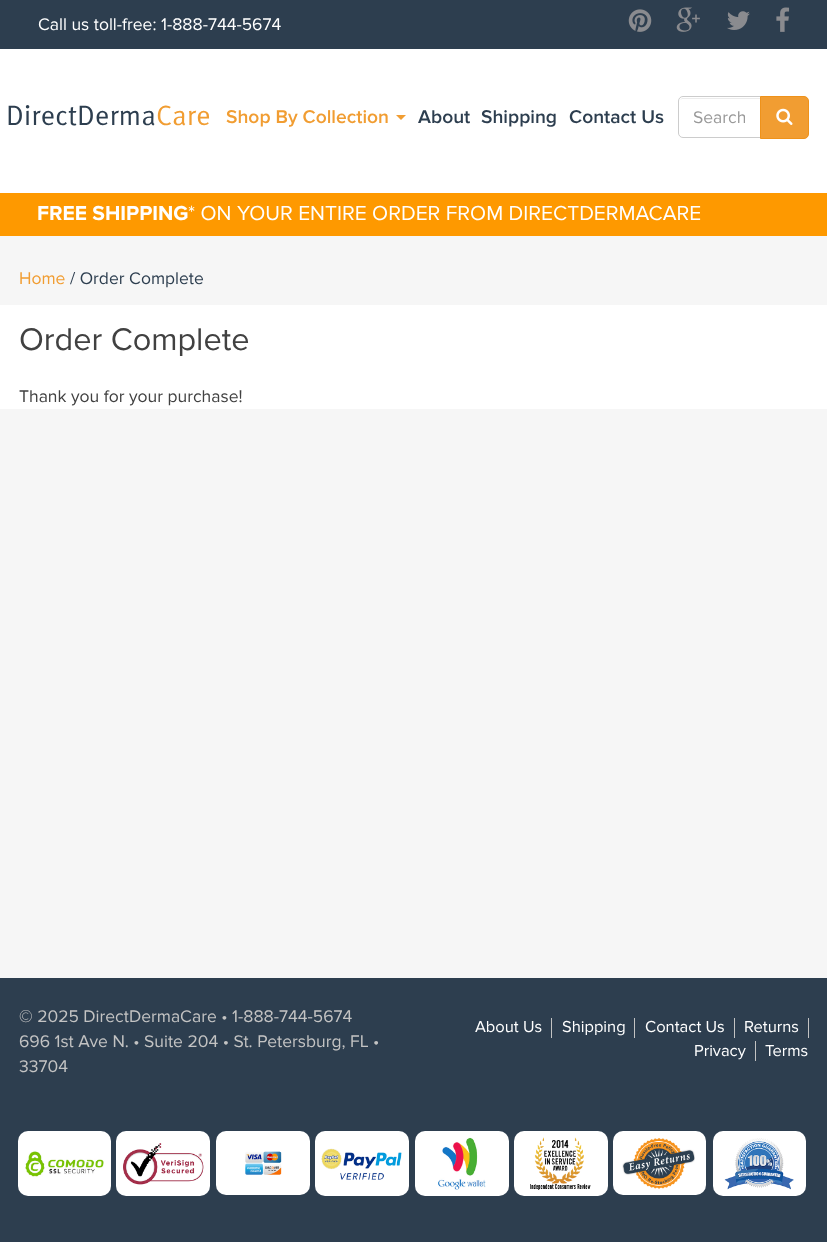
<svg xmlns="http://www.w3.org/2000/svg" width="827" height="1242">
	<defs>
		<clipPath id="clip1"><rect x="694" y="106" width="51" height="22" /></clipPath>
	</defs>
	<rect width="100%" height="100%" fill="#2D3E4F" />
	<text x="38" y="30" font-family="Proxima Nova" font-size="17.5" fill="#FFFFFF">Call us toll-free: 1-888-744-5674</text>
	<image x="628" y="9" width="24" height="23" href="assets/img1.png" />
	<image x="676" y="7" width="24" height="25" href="assets/img2.png" />
	<image x="727" y="11" width="23" height="19" href="assets/img3.png" />
	<image x="776" y="7" width="14" height="25" href="assets/img4.png" />
	<rect x="0" y="49" width="827" height="144" fill="#FFFFFF" />
	<text x="6" y="125" font-family="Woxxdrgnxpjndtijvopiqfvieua" font-size="28" fill="#2D3E4F">DirectDerma</text>
	<text x="156" y="125" font-family="Woxxdrgnxpjndtijvopiqfvieua" font-size="28" fill="#F19D32">Care</text>
	<text x="226" y="123" font-family="Proxima Nova" font-size="19.25" font-weight="600" fill="#F19D32">Shop By Collection</text>
	<path d="M396 115H406L401 120Z" fill="#F19D32" />
	<g font-family="Proxima Nova" font-size="19.25" font-weight="600" fill="#2D3E4F">
		<text x="418" y="123">About</text>
		<text x="481" y="123">Shipping</text>
		<text x="569" y="123">Contact Us</text>
	</g>
	<path d="M682 99H760V98H682L680 100Z" fill="#ECECEC" />
	<path d="M683 96.5H760.5V137.5H683C680.5 137.5 678.5 135.5 678.5 133V101C678.5 98.5 680.5 96.5 683 96.5Z" fill="none" stroke="#CCCCCC" />
	<g clip-path="url(#clip1)">
		<text x="693" y="123" font-family="Proxima Nova" font-size="17.5" fill="#999999">Search</text>
	</g>
	<path d="M760.5 96.5H804C806.5 96.5 808.5 98.5 808.5 101V134C808.5 136.5 806.5 138.5 804 138.5H760.5Z" fill="#F19D32" stroke="#EF921A" />
	<image x="776" y="108" width="17" height="17" href="assets/img5.png" />
	<rect x="0" y="193" width="827" height="43" fill="#FE9900" />
	<text x="37" y="220" font-family="Proxima Nova" font-size="21" font-weight="700" fill="#FFFFFF">FREE SHIPPING</text>
	<text x="188" y="220" font-family="Proxima Nova" font-size="21" fill="#FFFFFF">* ON YOUR ENTIRE ORDER FROM DIRECTDERMACARE</text>
	<rect x="0" y="236" width="827" height="742" fill="#F6F6F6" />
	<text x="19" y="284" font-family="Proxima Nova" font-size="17.5" fill="#F19D32">Home</text>
	<text x="70" y="284" font-family="Proxima Nova" font-size="17.5" fill="#2D3E4F">/ Order Complete</text>
	<rect x="0" y="305" width="827" height="104" fill="#FFFFFF" />
	<text x="19" y="350" font-family="Proxima Nova" font-size="32.5" fill="#414141">Order Complete</text>
	<text x="19" y="402" font-family="Proxima Nova" font-size="17.5" fill="#414141">Thank you for your purchase!</text>
	<g font-family="Proxima Nova" font-size="17.5" fill="#C3C3C3">
		<text x="19" y="1022">© 2025 DirectDermaCare • 1-888-744-5674</text>
		<text x="19" y="1047">696 1st Ave N. • Suite 204 • St. Petersburg, FL •</text>
		<text x="19" y="1072">33704</text>
	</g>
	<g font-family="Proxima Nova" font-size="16.5" fill="#FFFFFF">
		<text x="475" y="1032">About Us</text>
		<text x="562" y="1032">Shipping</text>
	</g>
	<rect x="551" y="1018" width="1" height="20" fill="#C3C3C3" />
	<rect x="634" y="1018" width="1" height="20" fill="#C3C3C3" />
	<text x="645" y="1032" font-family="Proxima Nova" font-size="16.5" fill="#FFFFFF">Contact Us</text>
	<rect x="734" y="1018" width="1" height="20" fill="#C3C3C3" />
	<text x="744" y="1032" font-family="Proxima Nova" font-size="16.5" fill="#FFFFFF">Returns</text>
	<rect x="808" y="1018" width="1" height="20" fill="#C3C3C3" />
	<text x="694" y="1056" font-family="Proxima Nova" font-size="16.5" fill="#FFFFFF">Privacy</text>
	<rect x="755" y="1041" width="1" height="20" fill="#C3C3C3" />
	<text x="765" y="1056" font-family="Proxima Nova" font-size="16.5" fill="#FFFFFF">Terms</text>
	<rect x="18" y="1131" width="93" height="65" rx="10" fill="#FFFFFF" />
	<image x="25" y="1150" width="79" height="27" href="assets/img6.png" />
	<rect x="116" y="1131" width="94" height="65" rx="10" fill="#FFFFFF" />
	<image x="123" y="1143" width="81" height="42" href="assets/img7.png" />
	<rect x="216" y="1131" width="94" height="64" rx="10" fill="#FFFFFF" />
	<image x="245" y="1151" width="37" height="24" href="assets/img8.png" />
	<rect x="315" y="1131" width="94" height="65" rx="10" fill="#FFFFFF" />
	<image x="321" y="1148" width="81" height="32" href="assets/img9.png" />
	<rect x="415" y="1131" width="94" height="65" rx="10" fill="#FFFFFF" />
	<image x="438" y="1137" width="48" height="53" href="assets/img10.png" />
	<rect x="514" y="1131" width="94" height="65" rx="10" fill="#FFFFFF" />
	<image x="530" y="1137" width="61" height="53" href="assets/img11.png" />
	<rect x="613" y="1131" width="93" height="64" rx="10" fill="#FFFFFF" />
	<image x="622" y="1138" width="73" height="51" href="assets/img12.png" />
	<rect x="713" y="1131" width="93" height="65" rx="10" fill="#FFFFFF" />
	<image x="724" y="1138" width="70" height="52" href="assets/img13.png" />
</svg>
